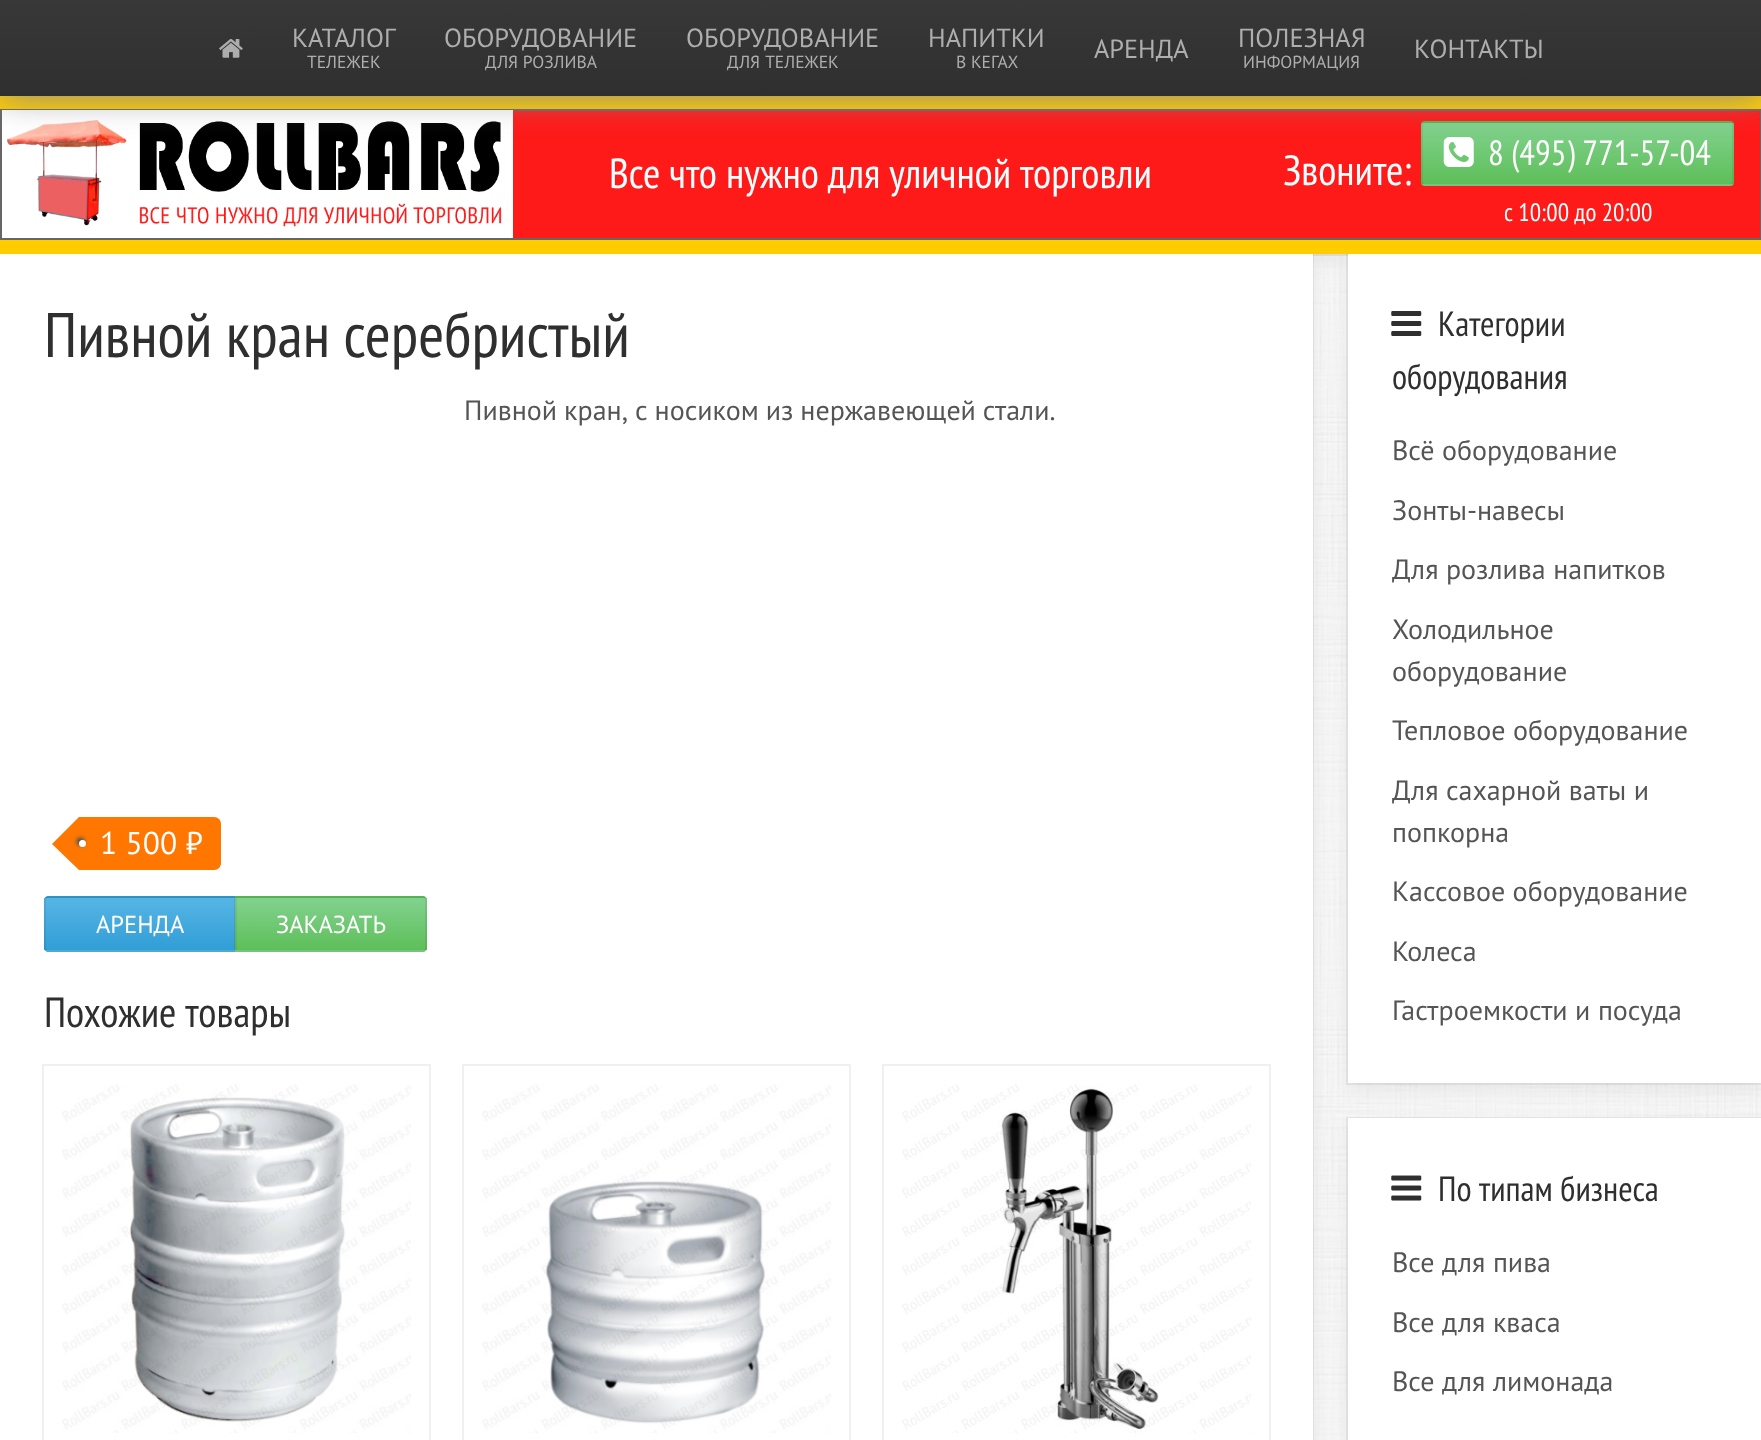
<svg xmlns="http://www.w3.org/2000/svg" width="1761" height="1440">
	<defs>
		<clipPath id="clip1"><rect x="1421" y="121" width="313" height="65" rx="4" /></clipPath>
		<linearGradient id="g1" gradientUnits="userSpaceOnUse" x1="1578" y1="61" x2="1578" y2="123"><stop offset="0" stop-color="#82D28F" /><stop offset="1" stop-color="#5EBF59" /></linearGradient>
		<linearGradient id="g2" gradientUnits="userSpaceOnUse" x1="1578" y1="122" x2="1578" y2="184"><stop offset="0" stop-color="#82D28F" /><stop offset="1" stop-color="#5EBF59" /></linearGradient>
		<linearGradient id="g3" gradientUnits="userSpaceOnUse" x1="1578" y1="184" x2="1578" y2="245"><stop offset="0" stop-color="#82D28F" /><stop offset="1" stop-color="#5EBF59" /></linearGradient>
		<linearGradient id="g4" gradientUnits="userSpaceOnUse" x1="881" y1="0" x2="881" y2="96"><stop offset="0" stop-color="#383838" /><stop offset="1" stop-color="#2F2F2F" /></linearGradient>
		<clipPath id="clip2"><path d="M48 896H236V952H48C46 952 44 950 44 948V900C44 898 46 896 48 896Z" /></clipPath>
		<linearGradient id="g5" gradientUnits="userSpaceOnUse" x1="140" y1="845" x2="140" y2="898"><stop offset="0" stop-color="#57B5E5" /><stop offset="1" stop-color="#319ED6" /></linearGradient>
		<linearGradient id="g6" gradientUnits="userSpaceOnUse" x1="140" y1="898" x2="140" y2="950"><stop offset="0" stop-color="#57B5E5" /><stop offset="1" stop-color="#319ED6" /></linearGradient>
		<linearGradient id="g7" gradientUnits="userSpaceOnUse" x1="140" y1="950" x2="140" y2="1003"><stop offset="0" stop-color="#57B5E5" /><stop offset="1" stop-color="#319ED6" /></linearGradient>
		<clipPath id="clip3"><path d="M235 896H423C425 896 427 898 427 900V948C427 950 425 952 423 952H235Z" /></clipPath>
		<linearGradient id="g8" gradientUnits="userSpaceOnUse" x1="331" y1="845" x2="331" y2="898"><stop offset="0" stop-color="#82D28F" /><stop offset="1" stop-color="#5EBF59" /></linearGradient>
		<linearGradient id="g9" gradientUnits="userSpaceOnUse" x1="331" y1="898" x2="331" y2="950"><stop offset="0" stop-color="#82D28F" /><stop offset="1" stop-color="#5EBF59" /></linearGradient>
		<linearGradient id="g10" gradientUnits="userSpaceOnUse" x1="331" y1="950" x2="331" y2="1003"><stop offset="0" stop-color="#82D28F" /><stop offset="1" stop-color="#5EBF59" /></linearGradient>
	</defs>
	<rect width="100%" height="100%" fill="#FFFFFF" />
	<image x="1313" y="254" width="448" height="1186" href="assets/img1.png" />
	<rect x="0" y="103" width="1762" height="158" fill="#000000" fill-opacity="0.06" filter="blur(9px)" />
	<rect x="-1" y="96" width="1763" height="159" fill="none" stroke="#000000" stroke-opacity="0.06" stroke-width="2" />
	<rect x="0" y="261" width="1313" height="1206" fill="#000000" fill-opacity="0.06" filter="blur(9px)" />
	<rect x="-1" y="253" width="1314" height="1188" fill="none" stroke="#000000" stroke-opacity="0.06" stroke-width="2" />
	<rect x="1348" y="261" width="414" height="829" fill="#000000" fill-opacity="0.06" filter="blur(9px)" />
	<rect x="1347" y="253" width="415" height="831" fill="none" stroke="#000000" stroke-opacity="0.06" stroke-width="2" />
	<rect x="0" y="96" width="1761" height="158" fill="#FFCC00" />
	<rect x="513" y="111" width="1247" height="127" fill="#FF1A1A" />
	<rect x="1" y="110" width="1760" height="129" fill="none" stroke="#666666" stroke-width="2" />
	<rect x="2" y="110" width="511" height="128" fill="#FFFFFF" />
	<image x="7" y="120" width="495" height="107" href="assets/img3.png" />
	<g clip-path="url(#clip1)">
		<rect x="1421" y="121" width="313" height="2" fill="url(#g1)" />
		<rect x="1421" y="123" width="313" height="61" fill="url(#g2)" />
		<rect x="1421" y="184" width="313" height="2" fill="url(#g3)" />
	</g>
	<rect x="1422" y="122" width="311" height="63" rx="3" fill="none" stroke="#000000" stroke-opacity="0.07" stroke-width="2" />
	<image x="1443" y="137" width="31" height="30" href="assets/img4.png" />
	<rect x="0" y="0" width="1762" height="96" fill="#888888" filter="blur(17.5px)" />
	<rect x="0" y="0" width="1761" height="96" fill="url(#g4)" />
	<image x="219" y="39" width="24" height="19" href="assets/img2.png" />
	<text x="292" y="47" font-family="PT Sans" font-size="26.25" fill="#AEAEAE">КАТАЛОГ</text>
	<text x="307" y="68" font-family="PT Sans" font-size="17.5" fill="#AEAEAE">ТЕЛЕЖЕК</text>
	<text x="444" y="47" font-family="PT Sans" font-size="26.25" fill="#AEAEAE">ОБОРУДОВАНИЕ</text>
	<text x="485" y="68" font-family="PT Sans" font-size="17.5" fill="#AEAEAE">ДЛЯ РОЗЛИВА</text>
	<text x="686" y="47" font-family="PT Sans" font-size="26.25" fill="#AEAEAE">ОБОРУДОВАНИЕ</text>
	<text x="727" y="68" word-spacing="1" font-family="PT Sans" font-size="17.5" fill="#AEAEAE">ДЛЯ ТЕЛЕЖЕК</text>
	<text x="928" y="47" font-family="PT Sans" font-size="26.25" fill="#AEAEAE">НАПИТКИ</text>
	<text x="956" y="68" font-family="PT Sans" font-size="17.5" fill="#AEAEAE">В КЕГАХ</text>
	<g font-family="PT Sans" font-size="26.25" fill="#AEAEAE">
		<text x="1094" y="58">АРЕНДА</text>
		<text x="1238" y="47">ПОЛЕЗНАЯ</text>
	</g>
	<text x="1243" y="68" font-family="PT Sans" font-size="17.5" fill="#AEAEAE">ИНФОРМАЦИЯ</text>
	<text x="1414" y="58" font-family="PT Sans" font-size="26.25" fill="#AEAEAE">КОНТАКТЫ</text>
	<g font-family="PT Sans Narrow" font-size="42" fill="#FFFFFF">
		<text x="609" y="188">Все что нужно для уличной торговли</text>
		<text x="1283" y="185">Звоните:</text>
	</g>
	<text x="1488" y="165" font-family="PT Sans Narrow" font-size="35" fill="#FFFFFF">8 (495) 771-57-04</text>
	<text x="1504" y="221" font-family="PT Sans Narrow" font-size="25.25" fill="#FFFFFF">с 10:00 до 20:00</text>
	<rect x="0" y="254" width="1313" height="1186" fill="#FFFFFF" />
	<text x="44" y="357" font-family="PT Sans Narrow" font-size="63" fill="#2F2F2F">Пивной кран серебристый</text>
	<text x="464" y="420" word-spacing="-0.5" font-family="PT Sans" font-size="28" fill="#555555">Пивной кран, с носиком из нержавеющей стали.</text>
	<path d="M79 817H214C218 817 221 820 221 824V863C221 867 218 870 214 870H79Z" fill="#FF7700" />
	<path d="M79 817V870L52 844Z" fill="#FF7700" />
	<rect x="77" y="838" width="7" height="7" rx="3.5" fill="#004977" filter="blur(2px)" />
	<circle cx="82.5" cy="843.5" r="3.5" fill="#FFFFFF" />
	<text x="100" y="854" font-family="PT Sans" font-size="31.5" fill="#FFFFFF">1 500 ₽</text>
	<g clip-path="url(#clip2)">
		<rect x="44" y="896" width="192" height="2" fill="url(#g5)" />
	</g>
	<rect x="44" y="898" width="191" height="52" fill="url(#g6)" />
	<g clip-path="url(#clip2)">
		<rect x="44" y="950" width="192" height="2" fill="url(#g7)" />
	</g>
	<path d="M48 897H235V951H48C46.5 951 45 949.5 45 948V900C45 898.5 46.5 897 48 897Z" fill="none" stroke="#000000" stroke-opacity="0.07" stroke-width="2" />
	<text x="96" y="933" font-family="PT Sans" font-size="24.5" fill="#FFFFFF">АРЕНДА</text>
	<g clip-path="url(#clip3)">
		<rect x="235" y="896" width="192" height="2" fill="url(#g8)" />
	</g>
	<rect x="235" y="898" width="192" height="52" fill="url(#g9)" />
	<g clip-path="url(#clip3)">
		<rect x="235" y="950" width="192" height="2" fill="url(#g10)" />
	</g>
	<path d="M236 897H423C424.5 897 426 898.5 426 900V948C426 949.5 424.5 951 423 951H236Z" fill="none" stroke="#000000" stroke-opacity="0.07" stroke-width="2" />
	<text x="276" y="933" font-family="PT Sans" font-size="24.5" fill="#FFFFFF">ЗАКАЗАТЬ</text>
	<text x="44" y="1027" font-family="PT Sans Narrow" font-size="42" fill="#2F2F2F">Похожие товары</text>
	<rect x="43" y="1065" width="387" height="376" fill="none" stroke="#000000" stroke-opacity="0.06" stroke-width="2" />
	<image x="62" y="1084" width="349" height="349" href="assets/img5.png" />
	<rect x="463" y="1065" width="387" height="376" fill="none" stroke="#000000" stroke-opacity="0.06" stroke-width="2" />
	<image x="482" y="1084" width="349" height="349" href="assets/img6.png" />
	<rect x="883" y="1065" width="387" height="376" fill="none" stroke="#000000" stroke-opacity="0.06" stroke-width="2" />
	<image x="902" y="1084" width="349" height="349" href="assets/img7.png" />
	<rect x="1348" y="254" width="413" height="829" fill="#FFFFFF" />
	<image x="1391" y="311" width="31" height="25" href="assets/img8.png" />
	<g font-family="PT Sans Narrow" font-size="35" fill="#2F2F2F">
		<text x="1438" y="336">Категории</text>
		<text x="1392" y="389">оборудования</text>
	</g>
	<g font-family="PT Sans" font-size="28" fill="#555555">
		<text x="1392" y="460">Всё оборудование</text>
		<text x="1392" y="520">Зонты-навесы</text>
		<text x="1392" y="579">Для розлива напитков</text>
		<text x="1392" y="639">Холодильное</text>
		<text x="1392" y="681">оборудование</text>
		<text x="1392" y="740">Тепловое оборудование</text>
		<text x="1392" y="800">Для сахарной ваты и</text>
		<text x="1392" y="842">попкорна</text>
		<text x="1392" y="901">Кассовое оборудование</text>
		<text x="1392" y="961">Колеса</text>
		<text x="1392" y="1020">Гастроемкости и посуда</text>
	</g>
	<rect x="1348" y="1125" width="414" height="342" fill="#000000" fill-opacity="0.06" filter="blur(9px)" />
	<rect x="1347" y="1118" width="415" height="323" fill="none" stroke="#000000" stroke-opacity="0.06" stroke-width="2" />
	<rect x="1348" y="1118" width="413" height="322" fill="#FFFFFF" />
	<image x="1391" y="1175" width="31" height="26" href="assets/img9.png" />
	<text x="1438" y="1201" font-family="PT Sans Narrow" font-size="35" fill="#2F2F2F">По типам бизнеса</text>
	<g font-family="PT Sans" font-size="28" fill="#555555">
		<text x="1392" y="1272">Все для пива</text>
		<text x="1392" y="1332">Все для кваса</text>
		<text x="1392" y="1391">Все для лимонада</text>
	</g>
</svg>
